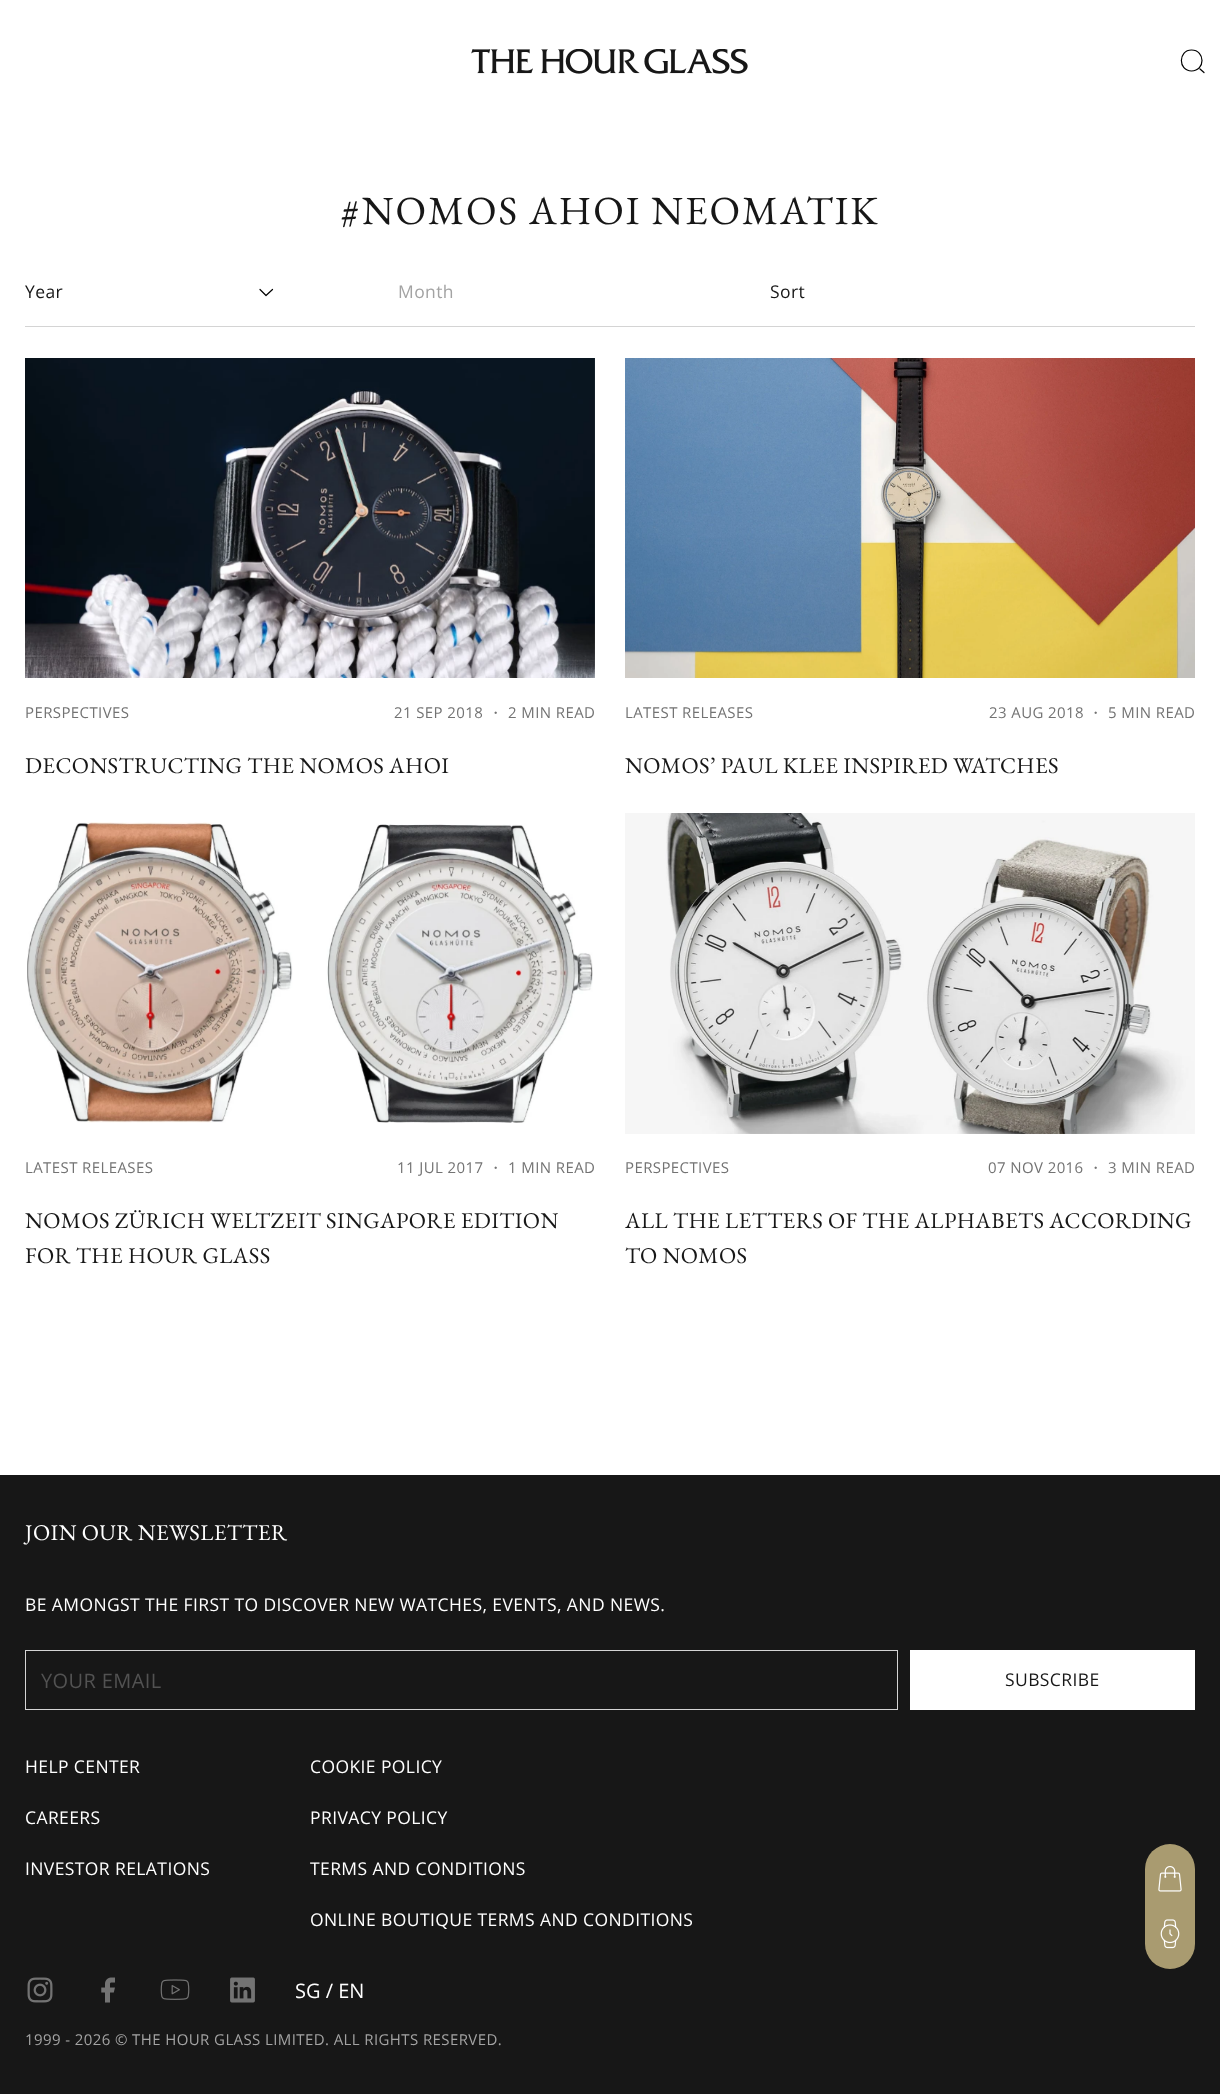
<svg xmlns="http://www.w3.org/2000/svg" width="1220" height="2094">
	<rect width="100%" height="100%" fill="#FFFFFF" />
	<image x="471" y="49" width="277" height="25" href="assets/img1.png" />
	<path d="M1191.5 71C1205.5 71 1205.5 50 1191.5 50C1178 50 1178 71 1191.5 71ZM1204 72.5L1200 69" fill="none" stroke="#000000" stroke-width="1.2" stroke-linecap="round" stroke-linejoin="round" />
	<text x="341" y="224" font-family="EB Garamond" font-size="40" letter-spacing="2" fill="#171717">#NOMOS AHOI NEOMATIK</text>
	<rect x="25" y="326" width="1170" height="1" fill="#D4D4D4" />
	<text x="25" y="298" font-family="Open Sans" font-size="17.5" letter-spacing="0.4" fill="#171717">Year</text>
	<path d="M272.5 289.5L266 295.5L260 289.5" fill="none" stroke="#000000" stroke-width="1.2" stroke-linecap="round" stroke-linejoin="round" />
	<text x="398" y="298" font-family="Open Sans" font-size="17.5" letter-spacing="0.4" fill="#A3A3A3">Month</text>
	<text x="770" y="298" font-family="Open Sans" font-size="17.5" letter-spacing="0.4" fill="#171717">Sort</text>
	<image x="25" y="358" width="570" height="320" href="assets/img2.png" />
	<g font-family="Open Sans" font-size="15" letter-spacing="0.4" fill="#737373">
		<text x="25" y="718">PERSPECTIVES</text>
		<text x="394" y="718">21 SEP 2018</text>
	</g>
	<text x="488" y="718" font-family="WenQuanYi Zen Hei" font-size="15" font-weight="500" letter-spacing="0.4" fill="#737373">・</text>
	<text x="508" y="718" font-family="Open Sans" font-size="15" letter-spacing="0.4" fill="#737373">2 MIN READ</text>
	<text x="25" y="773" font-family="EB Garamond" font-size="22.5" letter-spacing="0.4" fill="#171717">DECONSTRUCTING THE NOMOS AHOI</text>
	<image x="625" y="358" width="570" height="320" href="assets/img3.png" />
	<g font-family="Open Sans" font-size="15" letter-spacing="0.4" fill="#737373">
		<text x="625" y="718">LATEST RELEASES</text>
		<text x="989" y="718">23 AUG 2018</text>
	</g>
	<text x="1088" y="718" font-family="WenQuanYi Zen Hei" font-size="15" font-weight="500" letter-spacing="0.4" fill="#737373">・</text>
	<text x="1108" y="718" font-family="Open Sans" font-size="15" letter-spacing="0.4" fill="#737373">5 MIN READ</text>
	<text x="625" y="773" font-family="EB Garamond" font-size="22.5" letter-spacing="0.4" fill="#171717">NOMOS’ PAUL KLEE INSPIRED WATCHES</text>
	<image x="27" y="822" width="566" height="301" href="assets/img4.png" />
	<g font-family="Open Sans" font-size="15" letter-spacing="0.4" fill="#737373">
		<text x="25" y="1173">LATEST RELEASES</text>
		<text x="397" y="1173">11 JUL 2017</text>
	</g>
	<text x="488" y="1173" font-family="WenQuanYi Zen Hei" font-size="15" font-weight="500" letter-spacing="0.4" fill="#737373">・</text>
	<text x="508" y="1173" font-family="Open Sans" font-size="15" letter-spacing="0.4" fill="#737373">1 MIN READ</text>
	<g font-family="EB Garamond" font-size="22.5" letter-spacing="0.4" fill="#171717">
		<text x="25" y="1228">NOMOS ZÜRICH WELTZEIT SINGAPORE EDITION</text>
		<text x="25" y="1263">FOR THE HOUR GLASS</text>
	</g>
	<image x="625" y="813" width="570" height="321" href="assets/img5.png" />
	<g font-family="Open Sans" font-size="15" letter-spacing="0.4" fill="#737373">
		<text x="625" y="1173">PERSPECTIVES</text>
		<text x="988" y="1173">07 NOV 2016</text>
	</g>
	<text x="1088" y="1173" font-family="WenQuanYi Zen Hei" font-size="15" font-weight="500" letter-spacing="0.4" fill="#737373">・</text>
	<text x="1108" y="1173" font-family="Open Sans" font-size="15" letter-spacing="0.4" fill="#737373">3 MIN READ</text>
	<g font-family="EB Garamond" font-size="22.5" letter-spacing="0.4" fill="#171717">
		<text x="625" y="1228">ALL THE LETTERS OF THE ALPHABETS ACCORDING</text>
		<text x="625" y="1263">TO NOMOS</text>
	</g>
	<rect x="0" y="1475" width="1220" height="619" fill="#171717" />
	<text x="25" y="1540" font-family="EB Garamond" font-size="22.5" letter-spacing="0.4" fill="#FFFFFF">JOIN OUR NEWSLETTER</text>
	<text x="25" y="1611" font-family="Open Sans" font-size="17.5" letter-spacing="0.4" fill="#FFFFFF">BE AMONGST THE FIRST TO DISCOVER NEW WATCHES, EVENTS, AND NEWS.</text>
	<rect x="25.5" y="1650.5" width="872" height="59" fill="none" stroke="#D4D4D4" />
	<text x="41" y="1688" font-family="Open Sans" font-size="20" letter-spacing="0.4" fill="#525252">YOUR EMAIL</text>
	<rect x="910" y="1650" width="285" height="60" fill="#FFFFFF" />
	<text x="1005" y="1686" font-family="Open Sans" font-size="17.5" letter-spacing="0.4" fill="#171717">SUBSCRIBE</text>
	<g font-family="Open Sans" font-size="17.5" letter-spacing="0.4" fill="#FFFFFF">
		<text x="25" y="1773">HELP CENTER</text>
		<text x="25" y="1824">CAREERS</text>
		<text x="25" y="1875">INVESTOR RELATIONS</text>
		<text x="310" y="1773">COOKIE POLICY</text>
		<text x="310" y="1824">PRIVACY POLICY</text>
		<text x="310" y="1875">TERMS AND CONDITIONS</text>
		<text x="310" y="1926">ONLINE BOUTIQUE TERMS AND CONDITIONS</text>
	</g>
	<image x="27" y="1977" width="26" height="26" href="assets/img6.png" />
	<image x="101" y="1977" width="14" height="26" href="assets/img7.png" />
	<image x="160" y="1979" width="30" height="21" href="assets/img8.png" />
	<image x="230" y="1977" width="25" height="26" href="assets/img9.png" />
	<text x="295" y="1998" font-family="Open Sans" font-size="20" fill="#FFFFFF">SG / EN</text>
	<text x="25" y="2045" font-family="Open Sans" font-size="15" letter-spacing="0.4" fill="#A3A3A3">1999 - 2026 © THE HOUR GLASS LIMITED. ALL RIGHTS RESERVED.</text>
	<rect x="1145" y="1844" width="50" height="125" rx="25" fill="#A99B70" />
	<image x="1158" y="1866" width="24" height="26" href="assets/img10.png" />
	<image x="1160" y="1919" width="20" height="30" href="assets/img11.png" />
</svg>
